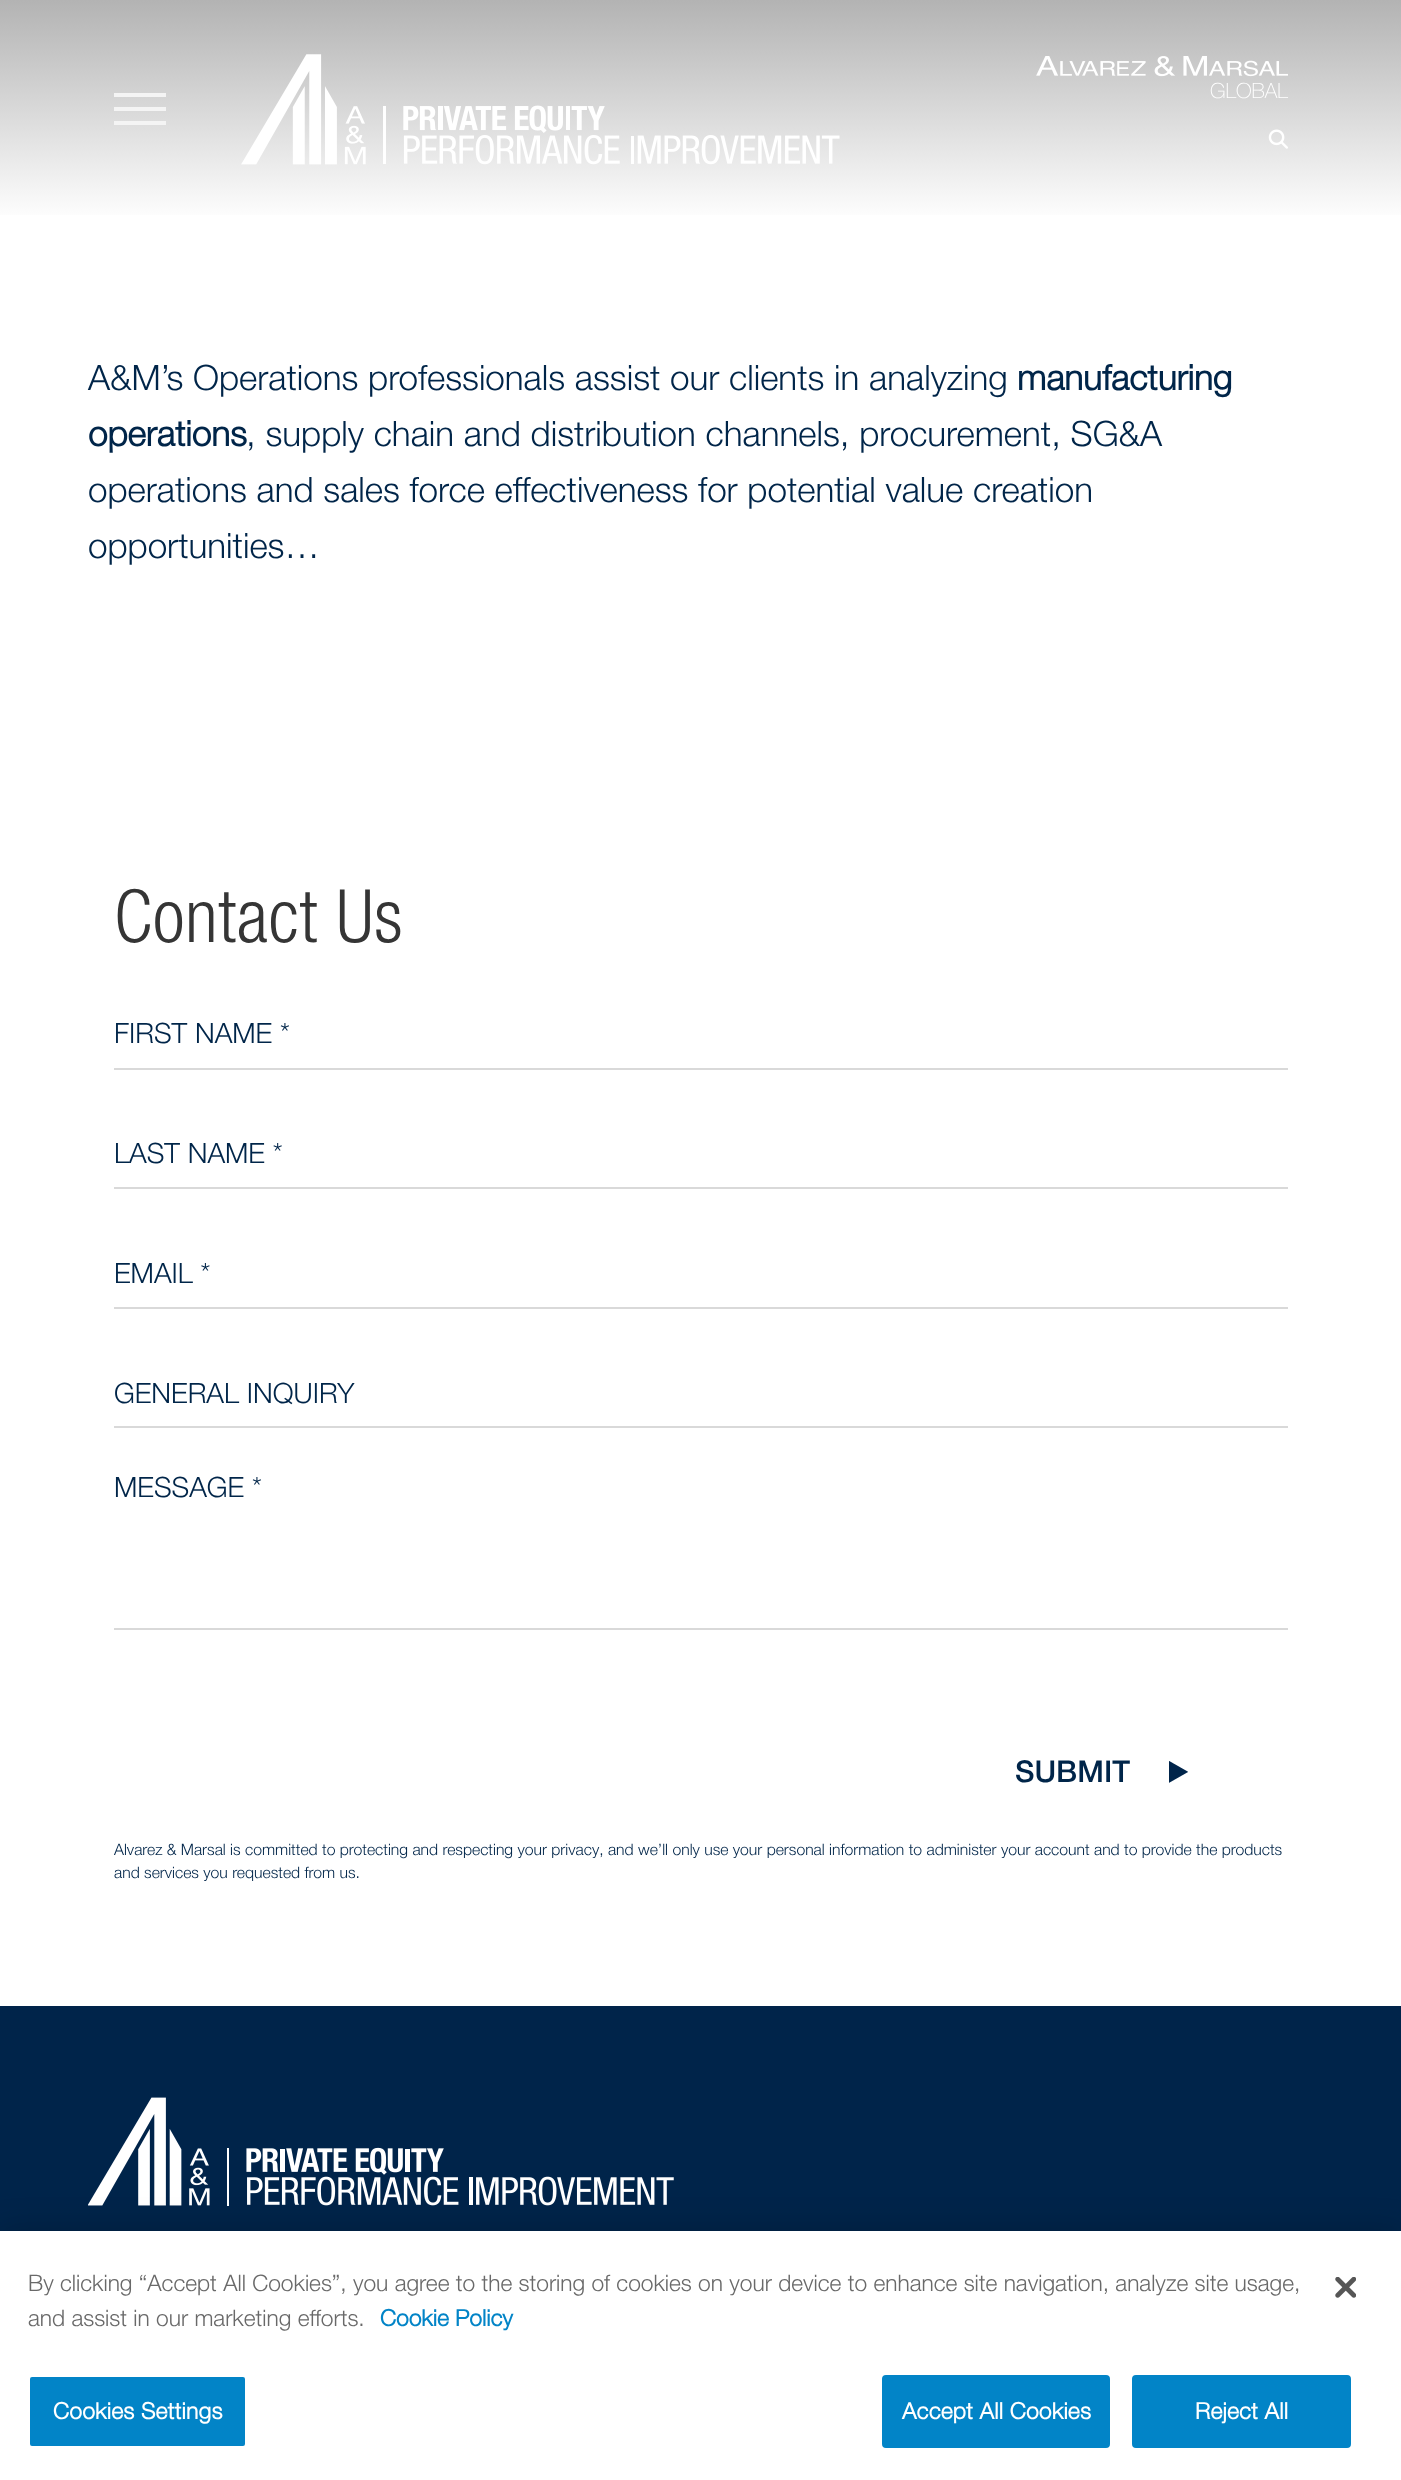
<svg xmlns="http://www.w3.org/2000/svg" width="1401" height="2480">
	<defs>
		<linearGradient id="g1" gradientUnits="userSpaceOnUse" x1="701" y1="0" x2="701" y2="222"><stop offset="0" stop-color="#B3B3B3" /><stop offset="1" stop-color="#FFFFFF" /></linearGradient>
	</defs>
	<rect width="100%" height="100%" fill="#FFFFFF" />
	<rect x="0" y="0" width="1401" height="215" fill="url(#g1)" />
	<rect x="114" y="93" width="52" height="4" fill="#F4F4F4" />
	<rect x="114" y="107" width="52" height="4" fill="#F4F4F4" />
	<rect x="114" y="121" width="52" height="4" fill="#F4F4F4" />
	<image x="241" y="54" width="599" height="111" href="assets/img1.png" />
	<image x="1036" y="56" width="252" height="21" href="assets/img2.png" />
	<text x="1210" y="98" font-family="'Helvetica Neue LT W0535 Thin'" font-size="21" font-weight="100" fill="#FFFFFF">GLOBAL</text>
	<image x="1268" y="129" width="20" height="20" href="assets/img3.png" />
	<text x="88" y="390" font-family="'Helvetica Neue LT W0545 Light'" font-size="35" font-weight="300" fill="#002549">A&amp;M’s Operations professionals assist our clients in analyzing</text>
	<g font-family="'Helvetica Neue LT W0545 Light'" font-size="35" font-weight="700" fill="#002549">
		<text x="1017" y="390">manufacturing</text>
		<text x="88" y="446">operations</text>
	</g>
	<g font-family="'Helvetica Neue LT W0545 Light'" font-size="35" font-weight="300" fill="#002549">
		<text x="246" y="446">, supply chain and distribution channels, procurement, SG&amp;A</text>
		<text x="88" y="502">operations and sales force effectiveness for potential value creation</text>
		<text x="88" y="558">opportunities…</text>
	</g>
	<text x="114" y="942" font-family="'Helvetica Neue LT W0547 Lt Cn'" font-size="73.5" font-weight="300" letter-spacing="0.75" fill="#353535">Contact Us</text>
	<rect x="114" y="1068" width="1174" height="2" fill="#D9D9D9" />
	<text x="114" y="1043" font-family="'Helvetica Neue LT W0545 Light'" font-size="28" font-weight="300" fill="#002549">FIRST NAME *</text>
	<rect x="114" y="1187" width="1174" height="2" fill="#D9D9D9" />
	<text x="114" y="1163" font-family="'Helvetica Neue LT W0545 Light'" font-size="28" font-weight="300" fill="#002549">LAST NAME *</text>
	<rect x="114" y="1307" width="1174" height="2" fill="#D9D9D9" />
	<text x="114" y="1283" font-family="'Helvetica Neue LT W0545 Light'" font-size="28" font-weight="300" fill="#002549">EMAIL *</text>
	<rect x="114" y="1426" width="1174" height="2" fill="#D9D9D9" />
	<text x="114" y="1403" font-family="'Helvetica Neue LT W0545 Light'" font-size="28" font-weight="300" fill="#002549">GENERAL INQUIRY</text>
	<rect x="114" y="1628" width="1174" height="2" fill="#D9D9D9" />
	<text x="114" y="1497" font-family="'Helvetica Neue LT W0545 Light'" font-size="28" font-weight="300" fill="#002549">MESSAGE *</text>
	<image x="1169" y="1761" width="19" height="22" href="assets/img4.png" />
	<text x="1015" y="1782" font-family="'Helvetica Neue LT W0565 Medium'" font-size="30" font-weight="500" fill="#002549">SUBMIT</text>
	<g font-family="'Helvetica Neue LT W0545 Light'" font-size="15.75" font-weight="300" fill="#002549">
		<text x="114" y="1855">Alvarez &amp; Marsal is committed to protecting and respecting your privacy, and we’ll only use your personal information to administer your account and to provide the products</text>
		<text x="114" y="1878">and services you requested from us.</text>
	</g>
	<rect x="0" y="2006" width="1401" height="225" fill="#00244A" />
	<image x="88" y="2097" width="586" height="109" href="assets/img5.png" />
	<rect x="0" y="2231" width="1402" height="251" fill="#000000" fill-opacity="0.2" filter="blur(16px)" />
	<rect x="0" y="2231" width="1401" height="249" fill="#FFFFFF" />
	<g font-family="'Helvetica Neue LT W0545 Light'" font-size="22.75" font-weight="300" fill="#696969">
		<text x="28" y="2291">By clicking “Accept All Cookies”, you agree to the storing of cookies on your device to enhance site navigation, analyze site usage,</text>
		<text x="28" y="2326">and assist in our marketing efforts.</text>
	</g>
	<text x="380" y="2326" font-family="'Helvetica Neue LT W0545 Light'" font-size="22.75" font-weight="700" fill="#0284C7">Cookie Policy</text>
	<rect x="29" y="2376" width="217" height="71" rx="3" fill="#0284C7" stroke="#FFFFFF" stroke-width="2" />
	<text x="53" y="2419" font-family="'Helvetica Neue LT W0545 Light'" font-size="22.75" font-weight="700" letter-spacing="0.25" fill="#FFFFFF">Cookies Settings</text>
	<rect x="883" y="2376" width="226" height="71" rx="3" fill="#0284C7" stroke="#0284C7" stroke-width="2" />
	<text x="902" y="2419" font-family="'Helvetica Neue LT W0545 Light'" font-size="22.75" font-weight="700" letter-spacing="0.25" fill="#FFFFFF">Accept All Cookies</text>
	<rect x="1133" y="2376" width="217" height="71" rx="3" fill="#0284C7" stroke="#0284C7" stroke-width="2" />
	<text x="1195" y="2419" font-family="'Helvetica Neue LT W0545 Light'" font-size="22.75" font-weight="700" letter-spacing="0.25" fill="#FFFFFF">Reject All</text>
	<image x="1335" y="2277" width="21" height="21" href="assets/img6.png" />
</svg>
